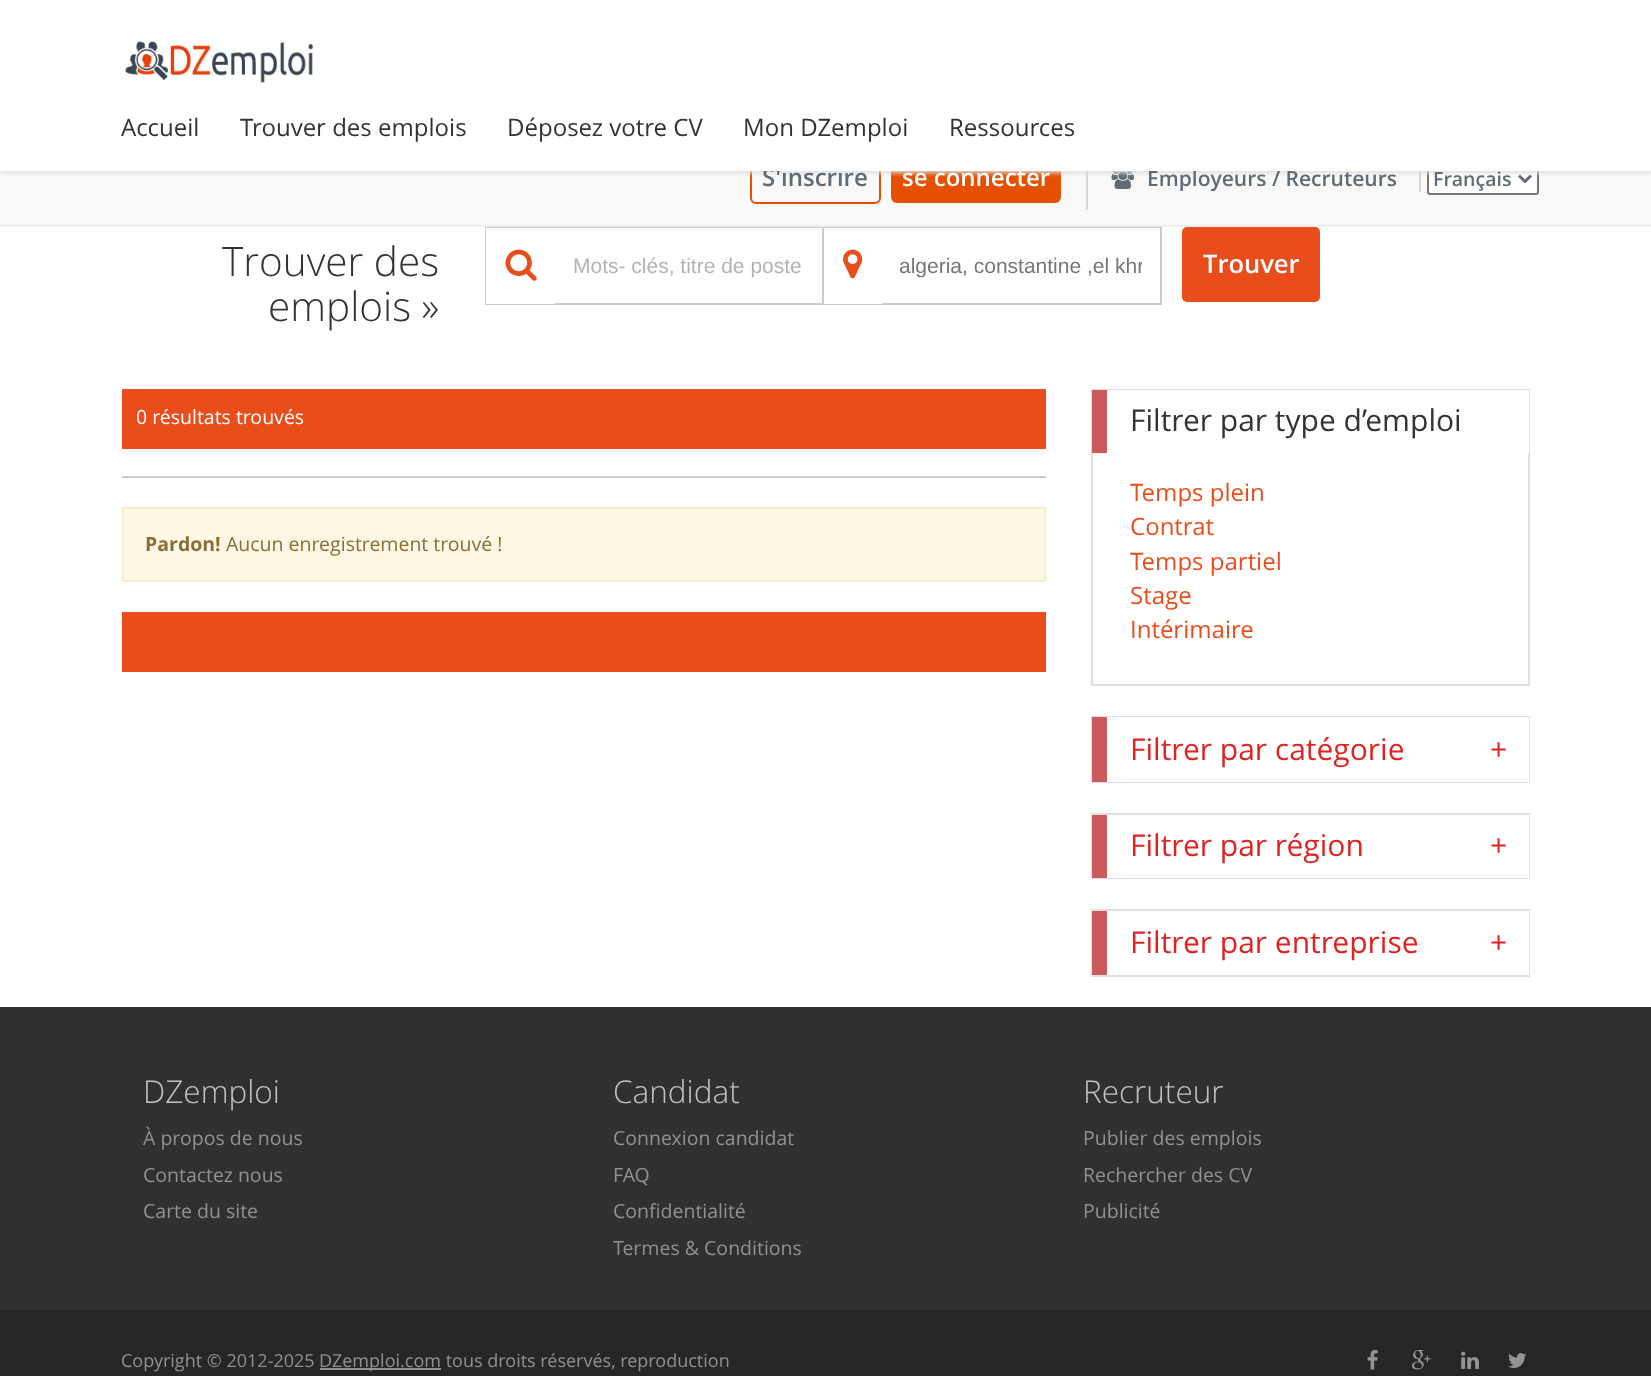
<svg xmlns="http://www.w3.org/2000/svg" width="1651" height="1376">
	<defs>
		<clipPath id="clip1"><rect x="900" y="254" width="242" height="24" /></clipPath>
	</defs>
	<rect width="100%" height="100%" fill="#FFFFFF" />
	<rect x="0" y="171" width="1651" height="54" fill="#F9F9F9" />
	<rect x="1086" y="171" width="2" height="39" fill="#D8D8D8" />
	<rect x="751" y="153" width="129" height="50" rx="5" fill="none" stroke="#E45000" stroke-width="2" />
	<rect x="891" y="153" width="170" height="50" rx="6" fill="#E45000" />
	<rect x="1419" y="167" width="2" height="25" fill="#D8D8D8" />
	<image x="1111" y="171" width="23" height="18" href="assets/img2.png" />
	<rect x="1428" y="163" width="110" height="31" rx="2" fill="#FFFFFF" stroke="#767676" stroke-width="2" />
	<path d="M1519 175.5L1525 181.5L1531 175.5" fill="none" stroke="#616B76" stroke-width="3" />
	<rect x="0" y="2" width="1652" height="171" fill="#DDDDDD" filter="blur(2px)" />
	<text x="762" y="186" font-family="Open Sans" font-size="24" font-weight="600" fill="#616B76">S'inscrire</text>
	<text x="1147" y="186" font-family="Open Sans" font-size="21" font-weight="600" fill="#616B76">Employeurs / Recruteurs</text>
	<rect x="0" y="0" width="1651" height="171" fill="#FFFFFF" />
	<image x="125" y="41" width="189" height="42" href="assets/img1.png" />
	<g font-family="Open Sans" font-size="24" fill="#333333">
		<text x="121" y="136">Accueil</text>
		<text x="240" y="136">Trouver des emplois</text>
		<text x="507" y="136">Déposez votre CV</text>
		<text x="743" y="136">Mon DZemploi</text>
		<text x="949" y="136">Ressources</text>
	</g>
	<rect x="0" y="225" width="1651" height="2" fill="#EEEEEE" />
	<text x="902" y="186" font-family="Open Sans" font-size="24" font-weight="600" fill="#FFFFFF">se connecter</text>
	<text x="1433" y="186" font-family="Open Sans" font-size="19.5" font-weight="600" fill="#616B76">Français</text>
	<g font-family="Open Sans" font-size="40.5" font-weight="300" fill="#333333">
		<text x="222" y="276">Trouver des</text>
		<text x="268" y="321">emplois »</text>
	</g>
	<rect x="486" y="228" width="337" height="76" fill="none" stroke="#CCCCCC" stroke-width="2" />
	<rect x="486" y="228" width="69" height="76" fill="#FFFFFF" />
	<image x="505" y="249" width="32" height="32" href="assets/img3.png" />
	<rect x="555" y="228" width="267" height="1" fill="#FFFFFF" />
	<text x="573" y="273" font-family="Liberation Sans" font-size="21" fill="#B3B3B3">Mots- clés, titre de poste</text>
	<rect x="824" y="227" width="337" height="1" fill="#CCCCCC" />
	<rect x="1160" y="227" width="2" height="78" fill="#CCCCCC" />
	<rect x="824" y="303" width="337" height="2" fill="#CCCCCC" />
	<rect x="824" y="303" width="58" height="1" fill="#FFFFFF" />
	<image x="843" y="249" width="20" height="30" href="assets/img4.png" />
	<g clip-path="url(#clip1)">
		<text x="899" y="273" font-family="Liberation Sans" font-size="21" fill="#777777">algeria, constantine ,el khr</text>
	</g>
	<rect x="1182" y="227" width="138" height="75" rx="5" fill="#E94D1C" />
	<text x="1203" y="273" font-family="Open Sans" font-size="25.5" font-weight="600" fill="#FFFFFF">Trouver</text>
	<rect x="122" y="389" width="924" height="60" fill="#E94D1C" />
	<text x="136" y="424" font-family="Open Sans" font-size="19.5" fill="#FFFFFF">0 résultats trouvés</text>
	<rect x="122" y="476" width="924" height="2" fill="#CCCCCC" />
	<rect x="123" y="508" width="922" height="73" fill="#FCF8E3" stroke="#FAEBCC" stroke-width="2" />
	<text x="145" y="551" font-family="Open Sans" font-size="19.5" font-weight="700" fill="#8A6D3B">Pardon!</text>
	<text x="226" y="551" font-family="Open Sans" font-size="19.5" fill="#8A6D3B">Aucun enregistrement trouvé !</text>
	<rect x="122" y="612" width="924" height="60" fill="#E94D1C" />
	<rect x="1092" y="390" width="437" height="295" fill="none" stroke="#E0E0E0" stroke-width="2" />
	<rect x="1107" y="390" width="422" height="63" fill="#FFFFFF" />
	<rect x="1092" y="390" width="15" height="63" fill="#CB5A5E" />
	<text x="1130" y="431" font-family="Open Sans" font-size="30" fill="#333333">Filtrer par type d’emploi</text>
	<g font-family="Open Sans" font-size="24" fill="#E94D1C">
		<text x="1130" y="501">Temps plein</text>
		<text x="1130" y="535">Contrat</text>
		<text x="1130" y="570">Temps partiel</text>
		<text x="1130" y="604">Stage</text>
		<text x="1130" y="638">Intérimaire</text>
	</g>
	<rect x="1092" y="717" width="437" height="65" fill="none" stroke="#E0E0E0" stroke-width="2" />
	<rect x="1107" y="717" width="422" height="65" fill="#FFFFFF" />
	<rect x="1092" y="717" width="15" height="65" fill="#CB5A5E" />
	<g font-family="Open Sans" font-size="30" fill="#E02222">
		<text x="1130" y="760">Filtrer par catégorie</text>
		<text x="1490" y="760">+</text>
	</g>
	<rect x="1092" y="814" width="437" height="64" fill="none" stroke="#E0E0E0" stroke-width="2" />
	<rect x="1107" y="815" width="422" height="63" fill="#FFFFFF" />
	<rect x="1092" y="815" width="15" height="63" fill="#CB5A5E" />
	<g font-family="Open Sans" font-size="30" fill="#E02222">
		<text x="1130" y="856">Filtrer par région</text>
		<text x="1490" y="856">+</text>
	</g>
	<rect x="1092" y="910" width="437" height="66" fill="none" stroke="#E0E0E0" stroke-width="2" />
	<rect x="1528" y="911" width="1" height="64" fill="#FFFFFF" />
	<rect x="1092" y="911" width="15" height="64" fill="#CB5A5E" />
	<g font-family="Open Sans" font-size="30" fill="#E02222">
		<text x="1130" y="953">Filtrer par entreprise</text>
		<text x="1490" y="953">+</text>
	</g>
	<rect x="0" y="1007" width="1651" height="303" fill="#313030" />
	<text x="143" y="1103" font-family="Open Sans" font-size="31.5" font-weight="300" fill="#C2C1C1">DZemploi</text>
	<g font-family="Open Sans" font-size="19.5" fill="#919191">
		<text x="143" y="1145">À propos de nous</text>
		<text x="143" y="1182">Contactez nous</text>
		<text x="143" y="1218">Carte du site</text>
	</g>
	<text x="613" y="1103" font-family="Open Sans" font-size="31.5" font-weight="300" fill="#C2C1C1">Candidat</text>
	<g font-family="Open Sans" font-size="19.5" fill="#919191">
		<text x="613" y="1145">Connexion candidat</text>
		<text x="613" y="1182">FAQ</text>
		<text x="613" y="1218">Confidentialité</text>
		<text x="613" y="1255">Termes &amp; Conditions</text>
	</g>
	<text x="1083" y="1103" font-family="Open Sans" font-size="31.5" font-weight="300" fill="#C2C1C1">Recruteur</text>
	<g font-family="Open Sans" font-size="19.5" fill="#919191">
		<text x="1083" y="1145">Publier des emplois</text>
		<text x="1083" y="1182">Rechercher des CV</text>
		<text x="1083" y="1218">Publicité</text>
	</g>
	<rect x="0" y="1310" width="1651" height="66" fill="#272626" />
	<text x="121" y="1367" font-family="Open Sans" font-size="18" fill="#919191">Copyright © 2012-2025</text>
	<rect x="320" y="1368" width="121" height="2" fill="#939393" />
	<text x="319" y="1367" font-family="Open Sans" font-size="18" fill="#919191">DZemploi.com tous droits réservés, reproduction</text>
	<image x="1367" y="1350" width="11" height="20" href="assets/img5.png" />
	<image x="1411" y="1350" width="20" height="20" href="assets/img6.png" />
	<image x="1461" y="1351" width="18" height="18" href="assets/img7.png" />
	<image x="1508" y="1353" width="19" height="15" href="assets/img8.png" />
</svg>
